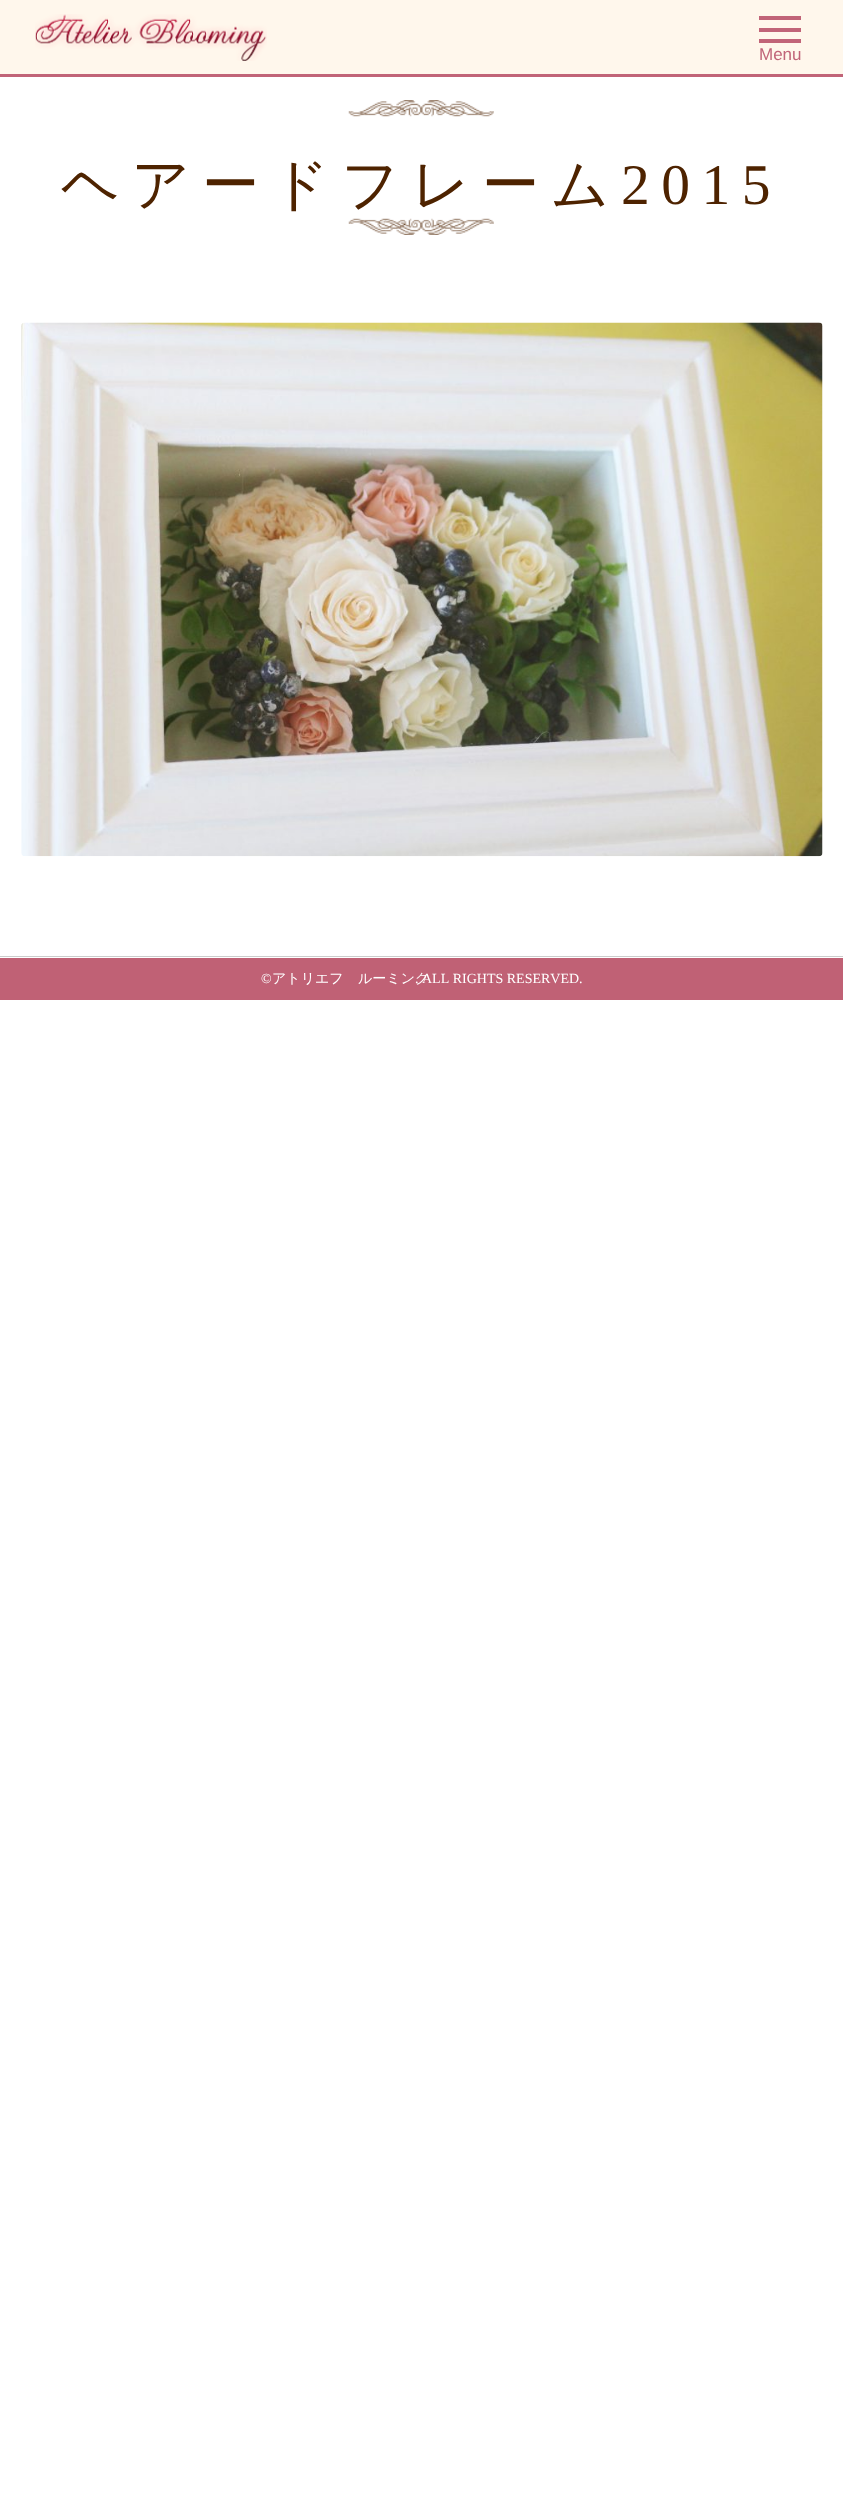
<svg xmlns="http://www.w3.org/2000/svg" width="843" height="2509">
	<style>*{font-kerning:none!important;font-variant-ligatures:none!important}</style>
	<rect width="100%" height="100%" fill="#FFFFFF" />
	<rect x="0" y="0" width="843" height="74" fill="#FFF7EC" />
	<rect x="0" y="74" width="843" height="3" fill="#C16478" />
	<image x="35" y="14" width="232" height="47" href="assets/img1.png" />
	<rect x="759" y="16" width="42" height="4" fill="#C16478" />
	<rect x="759" y="28" width="42" height="4" fill="#C16478" />
	<rect x="759" y="39" width="42" height="4" fill="#C16478" />
	<text x="759" y="60" font-family="Liberation Sans" font-size="17" fill="#C16579">Menu</text>
	<image x="348" y="100" width="146" height="17" href="assets/img2.png" />
	<text x="61" y="204" font-family="WenQuanYi Zen Hei" font-size="57.5" font-weight="500" letter-spacing="11.5" fill="#4E2300">ヘアードフレーム</text>
	<text x="621" y="204" font-family="Liberation Serif" font-size="57.5" letter-spacing="11.5" fill="#4E2300">2015</text>
	<image x="348" y="218" width="146" height="17" href="assets/img3.png" />
	<image x="21" y="322" width="802" height="535" href="assets/img4.png" />
	<rect x="0" y="956" width="843" height="1" fill="#CCCCCC" />
	<rect x="0" y="958" width="843" height="42" fill="#C06175" />
	<text x="261" y="983" font-family="Liberation Serif" font-size="14" fill="#FFFFFF">©</text>
	<text x="272" y="983" font-family="WenQuanYi Zen Hei" font-size="14" font-weight="500" fill="#FFFFFF">アトリエブルーミング</text>
	<text x="415" y="983" font-family="Liberation Serif" font-size="14" fill="#FFFFFF">. ALL RIGHTS RESERVED.</text>
</svg>
